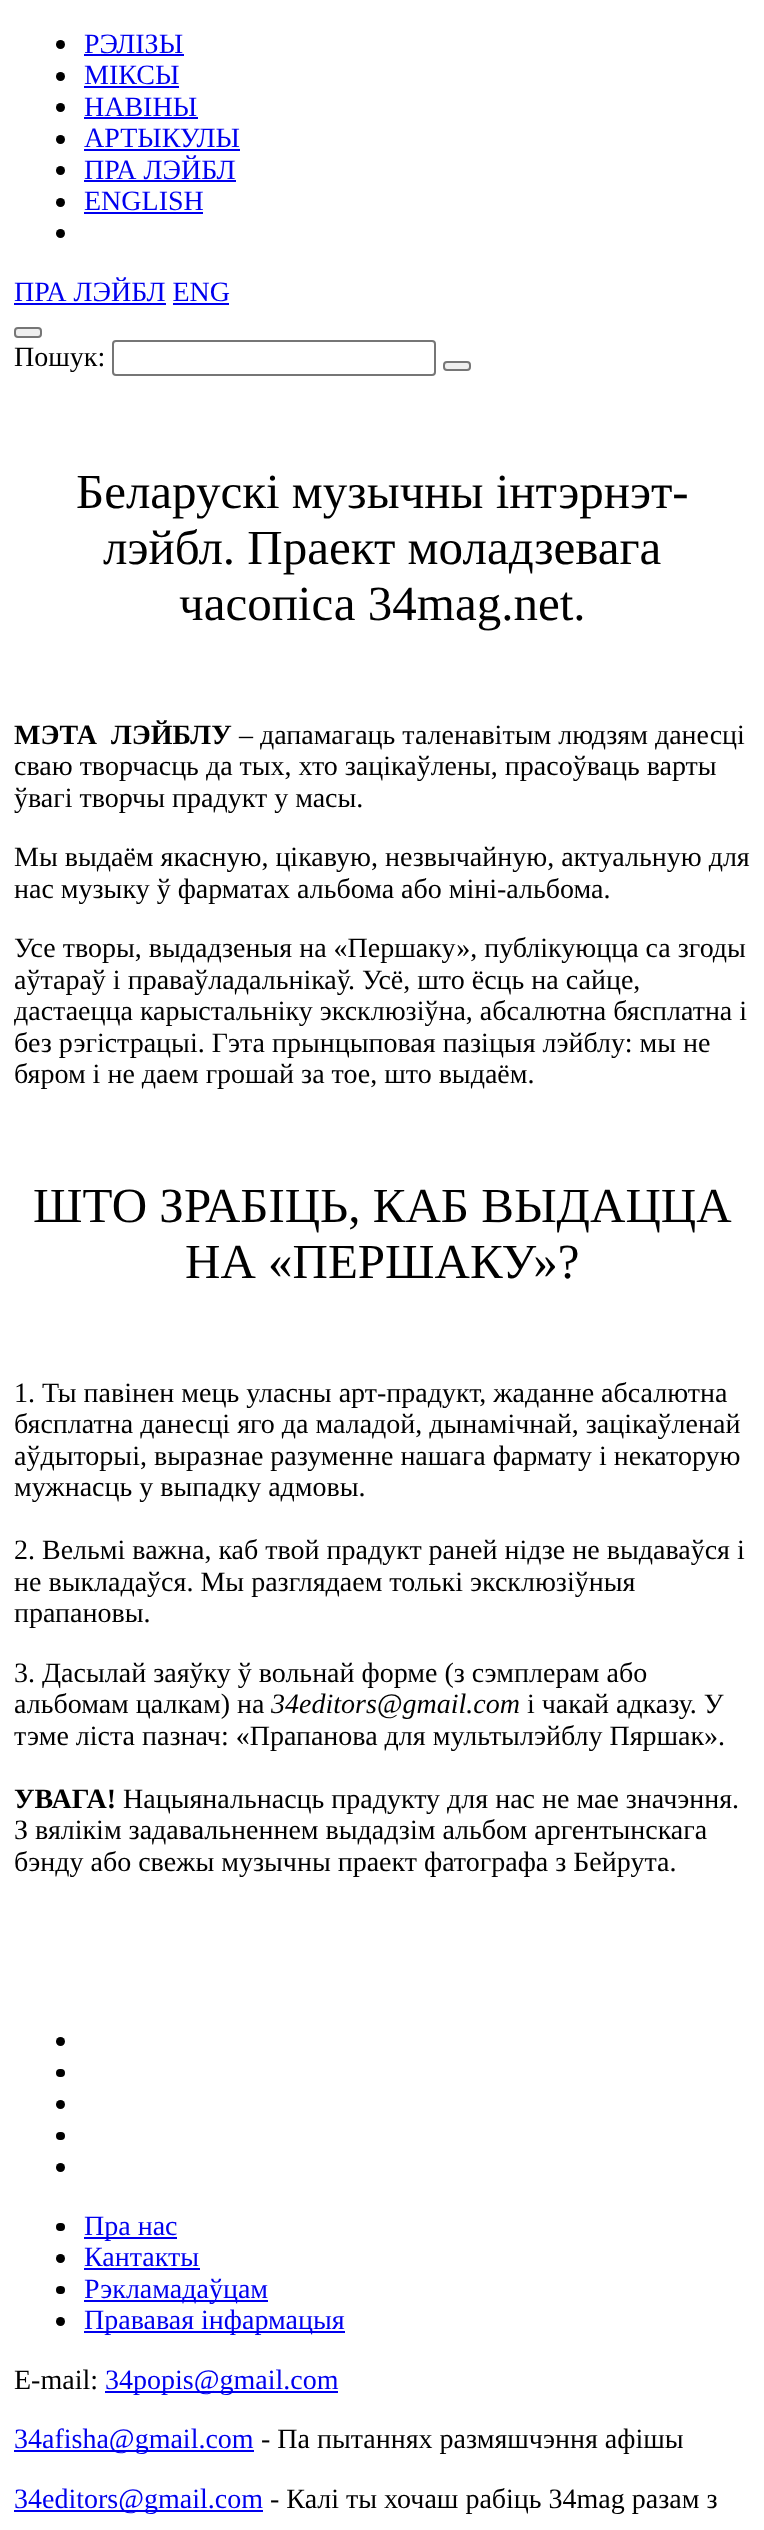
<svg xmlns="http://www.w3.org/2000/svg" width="764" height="2530">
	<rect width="100%" height="100%" fill="#FFFFFF" />
	<circle cx="60.5" cy="44.5" r="4.5" fill="#000000" />
	<text x="84" y="53" font-family="Liberation Serif" font-size="28" fill="#0000EE">РЭЛІЗЫ</text>
	<rect x="84" y="54" width="100" height="2" fill="#0000EE" />
	<circle cx="60.5" cy="76.5" r="4.5" fill="#000000" />
	<text x="84" y="84" font-family="Liberation Serif" font-size="28" fill="#0000EE">МІКСЫ</text>
	<rect x="84" y="86" width="95" height="2" fill="#0000EE" />
	<circle cx="60.5" cy="107.5" r="4.5" fill="#000000" />
	<text x="84" y="116" font-family="Liberation Serif" font-size="28" fill="#0000EE">НАВІНЫ</text>
	<rect x="84" y="117" width="114" height="2" fill="#0000EE" />
	<circle cx="60.5" cy="139.5" r="4.5" fill="#000000" />
	<text x="84" y="147" font-family="Liberation Serif" font-size="28" fill="#0000EE">АРТЫКУЛЫ</text>
	<rect x="84" y="149" width="156" height="2" fill="#0000EE" />
	<circle cx="60.5" cy="170.5" r="4.5" fill="#000000" />
	<text x="84" y="179" font-family="Liberation Serif" font-size="28" fill="#0000EE">ПРА ЛЭЙБЛ</text>
	<rect x="84" y="180" width="152" height="2" fill="#0000EE" />
	<circle cx="60.5" cy="202.5" r="4.5" fill="#000000" />
	<text x="84" y="210" font-family="Liberation Serif" font-size="28" fill="#0000EE">ENGLISH</text>
	<rect x="84" y="212" width="119" height="2" fill="#0000EE" />
	<circle cx="60.5" cy="233.5" r="4.5" fill="#000000" />
	<text x="14" y="301" font-family="Liberation Serif" font-size="28" fill="#0000EE">ПРА ЛЭЙБЛ ENG</text>
	<rect x="14" y="303" width="152" height="2" fill="#0000EE" />
	<rect x="173" y="303" width="56" height="2" fill="#0000EE" />
	<rect x="15" y="328" width="26" height="9" rx="3" fill="#EFEFEF" stroke="#767676" stroke-width="2" />
	<text x="14" y="366" font-family="Liberation Serif" font-size="28" fill="#000000">Пошук:</text>
	<rect x="113" y="341" width="322" height="34" rx="3" fill="none" stroke="#767676" stroke-width="2" />
	<rect x="444" y="362" width="26" height="8" rx="3" fill="#EFEFEF" stroke="#767676" stroke-width="2" />
	<g font-family="Liberation Serif" font-size="49" fill="#000000">
		<text x="76" y="508">Беларускі музычны інтэрнэт-</text>
		<text x="103" y="564">лэйбл. Праект моладзевага</text>
		<text x="179" y="620">часопіса 34mag.net.</text>
	</g>
	<text x="14" y="744" font-family="Liberation Serif" font-size="28" font-weight="700" fill="#000000" xml:space="preserve">МЭТА  ЛЭЙБЛУ</text>
	<g font-family="Liberation Serif" font-size="28" fill="#000000">
		<text x="239" y="744">– дапамагаць таленавітым людзям данесці</text>
		<text x="14" y="775">сваю творчасць да тых, хто зацікаўлены, прасоўваць варты</text>
		<text x="14" y="807">ўвагі творчы прадукт у масы.</text>
		<text x="14" y="866">Мы выдаём якасную, цікавую, незвычайную, актуальную для</text>
		<text x="14" y="898">нас музыку ў фарматах альбома або міні-альбома.</text>
		<text x="14" y="957">Усе творы, выдадзеныя на «Першаку», публікуюцца са згоды</text>
		<text x="14" y="989">аўтараў і праваўладальнікаў. Усё, што ёсць на сайце,</text>
		<text x="14" y="1020">дастаецца карыстальніку эксклюзіўна, абсалютна бясплатна і</text>
		<text x="14" y="1052">без рэгістрацыі. Гэта прынцыповая пазіцыя лэйблу: мы не</text>
		<text x="14" y="1083">бяром і не даем грошай за тое, што выдаём.</text>
	</g>
	<g font-family="Liberation Serif" font-size="49" fill="#000000">
		<text x="33" y="1222">ШТО ЗРАБІЦЬ, КАБ ВЫДАЦЦА</text>
		<text x="185" y="1278">НА «ПЕРШАКУ»?</text>
	</g>
	<g font-family="Liberation Serif" font-size="28" fill="#000000">
		<text x="14" y="1402">1. Ты павінен мець уласны арт-прадукт, жаданне абсалютна</text>
		<text x="14" y="1433">бясплатна данесці яго да маладой, дынамічнай, зацікаўленай</text>
		<text x="14" y="1465">аўдыторыі, выразнае разуменне нашага фармату і некаторую</text>
		<text x="14" y="1496">мужнасць у выпадку адмовы.</text>
		<text x="14" y="1559">2. Вельмі важна, каб твой прадукт раней нідзе не выдаваўся і</text>
		<text x="14" y="1591">не выкладаўся. Мы разглядаем толькі эксклюзіўныя</text>
		<text x="14" y="1622">прапановы.</text>
		<text x="14" y="1682">3. Дасылай заяўку ў вольнай форме (з сэмплерам або</text>
		<text x="14" y="1713">альбомам цалкам) на</text>
	</g>
	<text x="271" y="1713" font-family="Liberation Serif" font-size="28" font-style="italic" fill="#000000">34editors@gmail.com</text>
	<g font-family="Liberation Serif" font-size="28" fill="#000000">
		<text x="527" y="1713">і чакай адказу. У</text>
		<text x="14" y="1745">тэме ліста пазнач: «Прапанова для мультылэйблу Пяршак».</text>
	</g>
	<text x="14" y="1808" font-family="Liberation Serif" font-size="28" font-weight="700" fill="#000000">УВАГА!</text>
	<g font-family="Liberation Serif" font-size="28" fill="#000000">
		<text x="123" y="1808">Нацыянальнасць прадукту для нас не мае значэння.</text>
		<text x="14" y="1839">З вялікім задавальненнем выдадзім альбом аргентынскага</text>
		<text x="14" y="1871">бэнду або свежы музычны праект фатографа з Бейрута.</text>
	</g>
	<circle cx="60.5" cy="2041.5" r="4.5" fill="#000000" />
	<rect x="56" y="2069" width="9" height="8" rx="4" fill="#000000" />
	<circle cx="60.5" cy="2104.5" r="4.5" fill="#000000" />
	<rect x="56" y="2132" width="9" height="8" rx="4" fill="#000000" />
	<circle cx="60.5" cy="2167.5" r="4.5" fill="#000000" />
	<rect x="56" y="2223" width="9" height="8" rx="4" fill="#000000" />
	<rect x="84" y="2237" width="93" height="2" fill="#0000EE" />
	<text x="84" y="2235" font-family="Liberation Serif" font-size="28" fill="#0000EE">Пра нас</text>
	<circle cx="60.5" cy="2258.5" r="4.5" fill="#000000" />
	<text x="84" y="2266" font-family="Liberation Serif" font-size="28" fill="#0000EE">Кантакты</text>
	<rect x="84" y="2268" width="116" height="2" fill="#0000EE" />
	<rect x="56" y="2286" width="9" height="8" rx="4" fill="#000000" />
	<rect x="84" y="2300" width="184" height="2" fill="#0000EE" />
	<text x="84" y="2298" font-family="Liberation Serif" font-size="28" fill="#0000EE">Рэкламадаўцам</text>
	<circle cx="60.5" cy="2321.5" r="4.5" fill="#000000" />
	<rect x="84" y="2331" width="261" height="2" fill="#0000EE" />
	<text x="84" y="2329" font-family="Liberation Serif" font-size="28" fill="#0000EE">Прававая інфармацыя</text>
	<text x="14" y="2389" font-family="Liberation Serif" font-size="28" fill="#000000">E-mail:</text>
	<rect x="105" y="2391" width="233" height="2" fill="#0000EE" />
	<text x="105" y="2389" font-family="Liberation Serif" font-size="28" fill="#0000EE">34popis@gmail.com</text>
	<rect x="14" y="2450" width="240" height="2" fill="#0000EE" />
	<text x="14" y="2448" font-family="Liberation Serif" font-size="28" fill="#0000EE">34afisha@gmail.com</text>
	<text x="261" y="2448" font-family="Liberation Serif" font-size="28" fill="#000000">- Па пытаннях размяшчэння афішы</text>
	<rect x="14" y="2510" width="249" height="2" fill="#0000EE" />
	<text x="14" y="2508" font-family="Liberation Serif" font-size="28" fill="#0000EE">34editors@gmail.com</text>
	<text x="270" y="2508" font-family="Liberation Serif" font-size="28" fill="#000000">- Калі ты хочаш рабіць 34mag разам з</text>
</svg>
